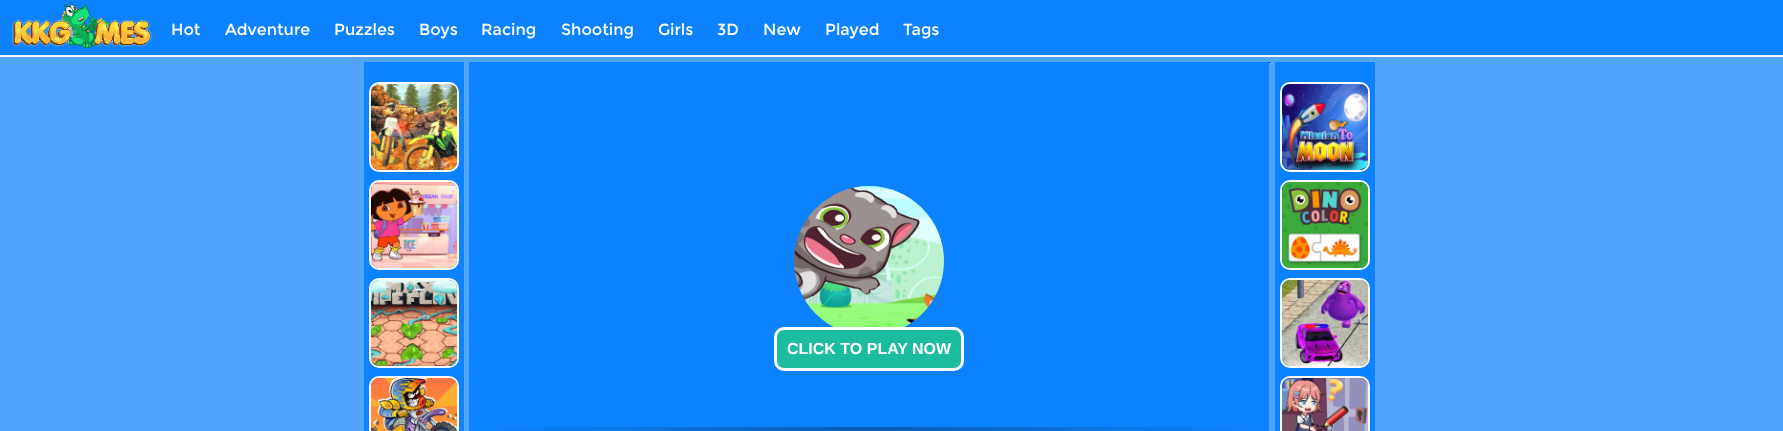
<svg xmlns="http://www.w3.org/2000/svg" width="1783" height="431">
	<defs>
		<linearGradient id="g1" gradientUnits="userSpaceOnUse" x1="479" y1="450" x2="1259" y2="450"><stop offset="0" stop-color="#0D82FF" /><stop offset="0.5" stop-color="#095BB3" /><stop offset="1" stop-color="#0D82FF" /></linearGradient>
	</defs>
	<rect width="100%" height="100%" fill="#50A5FF" />
	<rect x="0" y="0" width="1783" height="55" fill="#0D82FF" />
	<rect x="0" y="55" width="1783" height="2" fill="#FAFAFA" />
	<image x="11" y="2" width="141" height="47" href="assets/img1.png" />
	<g font-family="Montserrat" font-size="16" fill="#FFFFFF">
		<text x="171" y="35">Hot</text>
		<text x="225" y="35">Adventure</text>
		<text x="334" y="35">Puzzles</text>
		<text x="419" y="35">Boys</text>
		<text x="481" y="35">Racing</text>
		<text x="561" y="35">Shooting</text>
		<text x="658" y="35">Girls</text>
		<text x="717" y="35">3D</text>
		<text x="763" y="35">New</text>
		<text x="825" y="35">Played</text>
		<text x="903" y="35">Tags</text>
	</g>
	<rect x="364" y="62" width="100" height="369" fill="#0D82FF" />
	<rect x="370" y="83" width="88" height="88" rx="9" fill="none" stroke="#FAFAFA" stroke-width="2" />
	<image x="371" y="84" width="86" height="86" href="assets/img2.png" />
	<rect x="370" y="181" width="88" height="88" rx="9" fill="none" stroke="#FAFAFA" stroke-width="2" />
	<image x="371" y="182" width="86" height="86" href="assets/img3.png" />
	<rect x="370" y="279" width="88" height="88" rx="9" fill="none" stroke="#FAFAFA" stroke-width="2" />
	<image x="371" y="280" width="86" height="86" href="assets/img4.png" />
	<rect x="370" y="377" width="88" height="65" rx="9" fill="none" stroke="#FAFAFA" stroke-width="2" />
	<image x="371" y="378" width="86" height="53" href="assets/img5.png" />
	<rect x="469" y="62" width="800" height="369" fill="#0D82FF" />
	<image x="794" y="186" width="150" height="141" href="assets/img6.png" />
	<rect x="775.5" y="328.5" width="187" height="41" rx="8.5" fill="#1CBD9F" stroke="#FFFFFF" stroke-width="3" />
	<text x="787" y="354" font-family="Liberation Sans" font-size="16" font-weight="700" fill="#FFFFFF">CLICK TO PLAY NOW</text>
	<rect x="492" y="427" width="754" height="4" fill="url(#g1)" />
	<rect x="1269" y="62" width="1" height="1" fill="#000000" />
	<rect x="1275" y="62" width="100" height="369" fill="#0D82FF" />
	<rect x="1281" y="83" width="88" height="88" rx="9" fill="none" stroke="#FAFAFA" stroke-width="2" />
	<image x="1282" y="84" width="86" height="86" href="assets/img7.png" />
	<rect x="1281" y="181" width="88" height="88" rx="9" fill="none" stroke="#FAFAFA" stroke-width="2" />
	<image x="1282" y="182" width="86" height="86" href="assets/img8.png" />
	<rect x="1281" y="279" width="88" height="88" rx="9" fill="none" stroke="#FAFAFA" stroke-width="2" />
	<image x="1282" y="280" width="86" height="86" href="assets/img9.png" />
	<rect x="1281" y="377" width="88" height="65" rx="9" fill="none" stroke="#FAFAFA" stroke-width="2" />
	<image x="1282" y="378" width="86" height="53" href="assets/img10.png" />
</svg>
